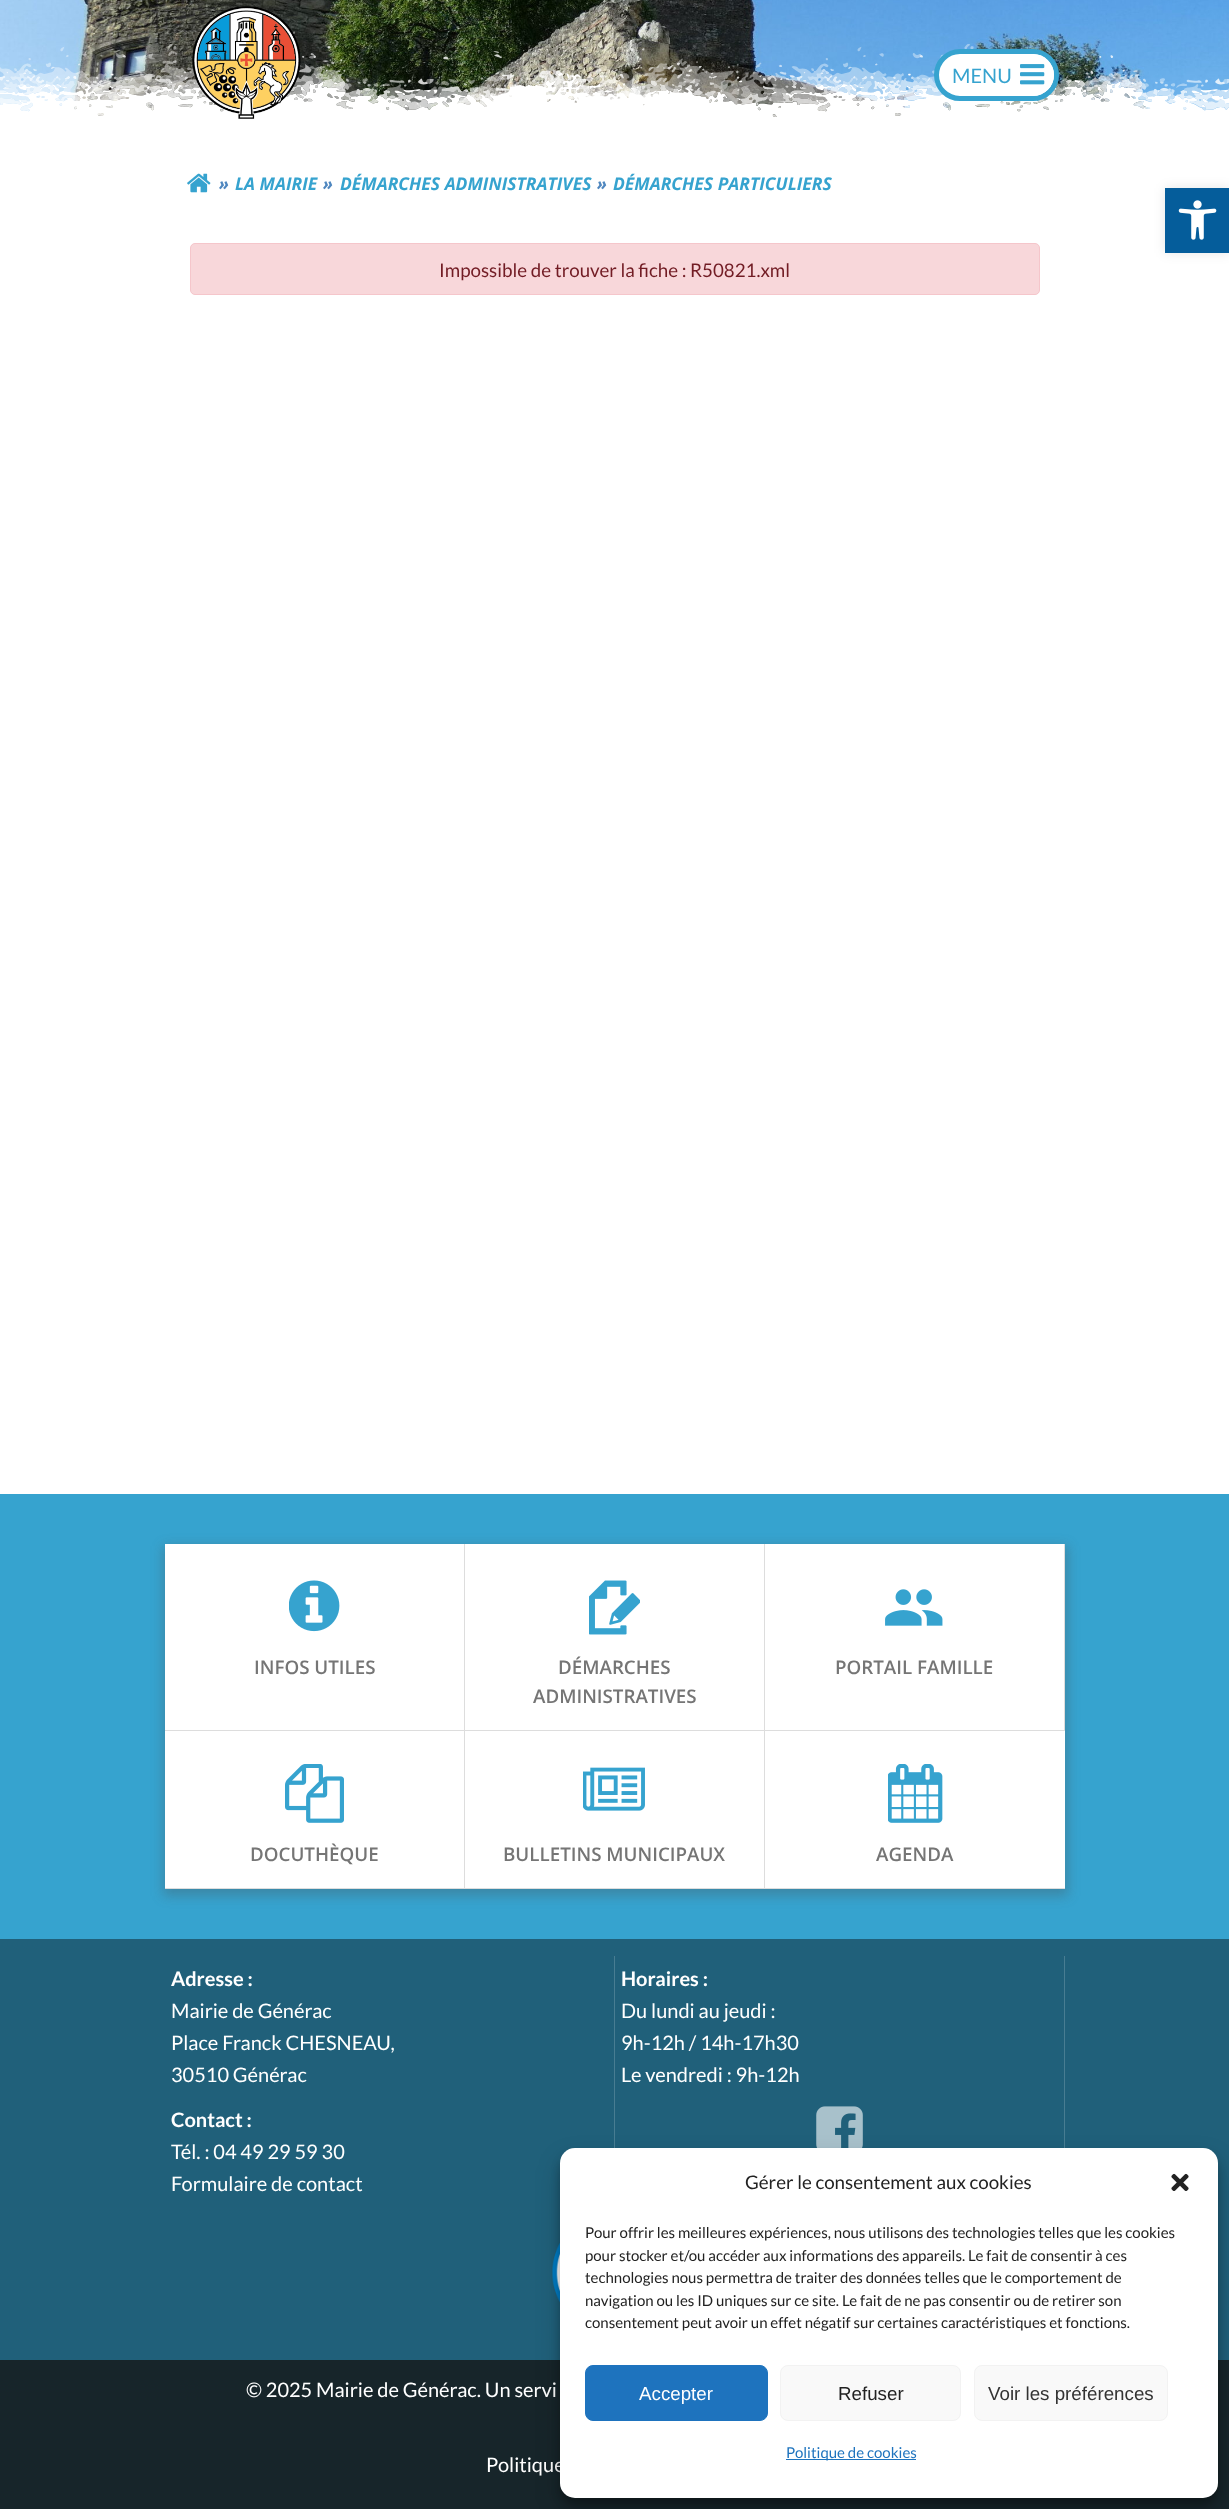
<svg xmlns="http://www.w3.org/2000/svg" width="1229" height="2509">
	<rect width="100%" height="100%" fill="#FFFFFF" />
	<image x="0" y="0" width="1229" height="117" href="assets/img1.png" />
	<image x="0" y="31" width="1229" height="119" href="assets/img2.png" />
	<image x="192" y="6" width="109" height="113" href="assets/img3.png" />
	<rect x="936.5" y="51.5" width="120" height="47" rx="23.5" fill="#FFFFFF" stroke="#36A3CF" stroke-width="5" />
	<text x="952" y="83" font-family="Lato" font-size="20" fill="#36A3CF">MENU</text>
	<rect x="1011" y="54" width="43" height="42" rx="21" fill="#FFFFFF" />
	<image x="1020" y="64" width="25" height="21" href="assets/img4.png" />
	<image x="187" y="173" width="24" height="20" href="assets/img5.png" />
	<text x="219" y="190" font-family="Open Sans" font-size="17.5" font-weight="700" font-style="italic" fill="#4F87BF">»</text>
	<text x="235" y="190" font-family="Open Sans" font-size="17.5" font-weight="700" font-style="italic" fill="#36A3CF">LA MAIRIE</text>
	<text x="323" y="190" font-family="Open Sans" font-size="17.5" font-weight="700" font-style="italic" fill="#4F87BF">»</text>
	<text x="340" y="190" font-family="Open Sans" font-size="17.5" font-weight="700" font-style="italic" fill="#36A3CF">DÉMARCHES ADMINISTRATIVES</text>
	<text x="597" y="190" font-family="Open Sans" font-size="17.5" font-weight="700" font-style="italic" fill="#4F87BF">»</text>
	<text x="613" y="190" font-family="Open Sans" font-size="17.5" font-weight="700" font-style="italic" fill="#36A3CF">DÉMARCHES PARTICULIERS</text>
	<rect x="190.5" y="243.5" width="849" height="51" rx="4.5" fill="#F8D7DA" stroke="#F5C6CB" />
	<text x="439" y="277" font-family="Lato" font-size="18.75" fill="#721C24">Impossible de trouver la fiche : R50821.xml</text>
	<rect x="0" y="1494" width="1229" height="445" fill="#36A3CF" />
	<rect x="163" y="1546" width="905" height="350" fill="#4A4A4A" fill-opacity="0.3" filter="blur(6px)" />
	<rect x="165" y="1544" width="299" height="186" fill="#FFFFFF" />
	<rect x="464" y="1544" width="1" height="345" fill="#DDDDDD" />
	<rect x="165" y="1730" width="300" height="1" fill="#DDDDDD" />
	<image x="289" y="1580" width="51" height="52" href="assets/img6.png" />
	<text x="254" y="1674" font-family="Open Sans" font-size="18.75" font-weight="600" fill="#757575">INFOS UTILES</text>
	<rect x="465" y="1544" width="299" height="186" fill="#FFFFFF" />
	<rect x="764" y="1544" width="1" height="345" fill="#DDDDDD" />
	<rect x="465" y="1730" width="300" height="1" fill="#DDDDDD" />
	<image x="589" y="1580" width="51" height="55" href="assets/img7.png" />
	<g font-family="Open Sans" font-size="18.75" font-weight="600" fill="#757575">
		<text x="558" y="1674">DÉMARCHES</text>
		<text x="533" y="1703">ADMINISTRATIVES</text>
	</g>
	<rect x="765" y="1544" width="299" height="186" fill="#FFFFFF" />
	<rect x="1064" y="1544" width="1" height="187" fill="#DDDDDD" />
	<rect x="765" y="1730" width="300" height="1" fill="#DDDDDD" />
	<image x="885" y="1589" width="58" height="37" href="assets/img8.png" />
	<text x="835" y="1674" font-family="Open Sans" font-size="18.75" font-weight="600" fill="#757575">PORTAIL FAMILLE</text>
	<rect x="165" y="1731" width="299" height="157" fill="#FFFFFF" />
	<rect x="165" y="1888" width="900" height="1" fill="#DDDDDD" />
	<image x="285" y="1764" width="59" height="59" href="assets/img9.png" />
	<text x="250" y="1861" font-family="Open Sans" font-size="18.75" font-weight="600" fill="#757575">DOCUTHÈQUE</text>
	<rect x="465" y="1731" width="299" height="157" fill="#FFFFFF" />
	<image x="583" y="1767" width="62" height="44" href="assets/img10.png" />
	<text x="503" y="1861" font-family="Open Sans" font-size="18.75" font-weight="600" fill="#757575">BULLETINS MUNICIPAUX</text>
	<rect x="765" y="1731" width="300" height="157" fill="#FFFFFF" />
	<image x="888" y="1764" width="55" height="59" href="assets/img11.png" />
	<text x="876" y="1861" font-family="Open Sans" font-size="18.75" font-weight="600" fill="#757575">AGENDA</text>
	<rect x="0" y="1939" width="1229" height="421" fill="#20607A" />
	<rect x="614" y="1956" width="1" height="192" fill="#487D92" />
	<text x="171" y="1986" font-family="Lato" font-size="20" font-weight="700" fill="#FFFFFF">Adresse :</text>
	<g font-family="Lato" font-size="20" fill="#FFFFFF">
		<text x="171" y="2018">Mairie de Générac</text>
		<text x="171" y="2050">Place Franck CHESNEAU,</text>
		<text x="171" y="2082">30510 Générac</text>
	</g>
	<rect x="1064" y="1956" width="1" height="192" fill="#487D92" />
	<text x="621" y="1986" font-family="Lato" font-size="20" font-weight="700" fill="#FFFFFF">Horaires :</text>
	<g font-family="Lato" font-size="20" fill="#FFFFFF">
		<text x="621" y="2018">Du lundi au jeudi :</text>
		<text x="621" y="2050">9h-12h / 14h-17h30</text>
		<text x="621" y="2082">Le vendredi : 9h-12h</text>
	</g>
	<text x="171" y="2127" font-family="Lato" font-size="20" font-weight="700" fill="#FFFFFF">Contact :</text>
	<g font-family="Lato" font-size="20" fill="#FFFFFF">
		<text x="171" y="2159">Tél. : 04 49 29 59 30</text>
		<text x="171" y="2191">Formulaire de contact</text>
	</g>
	<image x="816" y="2106" width="47" height="42" href="assets/img12.png" />
	<image x="552" y="2242" width="8" height="61" href="assets/img13.png" />
	<rect x="0" y="2360" width="1229" height="149" fill="#17252A" />
	<g font-family="Lato" font-size="20" fill="#FFFFFF">
		<text x="246" y="2397">© 2025 Mairie de Générac. Un servi</text>
		<text x="486" y="2472">Politique</text>
	</g>
	<rect x="1165" y="188" width="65" height="65" fill="#000000" fill-opacity="0.1" filter="blur(6px)" />
	<rect x="1165" y="188" width="64" height="65" fill="#055D9B" />
	<image x="1178" y="200" width="39" height="40" href="assets/img14.png" />
	<rect x="560" y="2155" width="658" height="350" rx="15" fill="#000000" fill-opacity="0.23" filter="blur(4px)" />
	<rect x="560" y="2160" width="658" height="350" rx="15" fill="#000000" fill-opacity="0.19" filter="blur(12.5px)" />
	<rect x="560" y="2148" width="658" height="350" rx="15" fill="#FFFFFF" />
	<text x="745" y="2189" font-family="Lato" font-size="18.75" fill="#222222">Gérer le consentement aux cookies</text>
	<image x="1171" y="2173" width="18" height="18" href="assets/img15.png" />
	<g font-family="Lato" font-size="15" fill="#222222">
		<text x="585" y="2238">Pour offrir les meilleures expériences, nous utilisons des technologies telles que les cookies</text>
		<text x="585" y="2261">pour stocker et/ou accéder aux informations des appareils. Le fait de consentir à ces</text>
		<text x="585" y="2283">technologies nous permettra de traiter des données telles que le comportement de</text>
		<text x="585" y="2306">navigation ou les ID uniques sur ce site. Le fait de ne pas consentir ou de retirer son</text>
		<text x="585" y="2328">consentement peut avoir un effet négatif sur certaines caractéristiques et fonctions.</text>
	</g>
	<rect x="585.5" y="2365.5" width="182" height="55" rx="7.5" fill="#1E73BE" stroke="#1E73BE" />
	<text x="639" y="2400" font-family="Liberation Sans" font-size="18.75" fill="#FFFFFF">Accepter</text>
	<rect x="780.5" y="2365.5" width="180" height="55" rx="7.5" fill="#F9F9F9" stroke="#F2F2F2" />
	<text x="838" y="2400" font-family="Liberation Sans" font-size="18.75" fill="#222222">Refuser</text>
	<rect x="974.5" y="2365.5" width="193" height="55" rx="7.5" fill="#F9F9F9" stroke="#F2F2F2" />
	<text x="988" y="2400" font-family="Liberation Sans" font-size="18.75" fill="#333333">Voir les préférences</text>
	<rect x="786" y="2459" width="130" height="1" fill="#1E73BE" />
	<text x="786" y="2458" font-family="Lato" font-size="15" fill="#1E73BE">Politique de cookies</text>
</svg>
